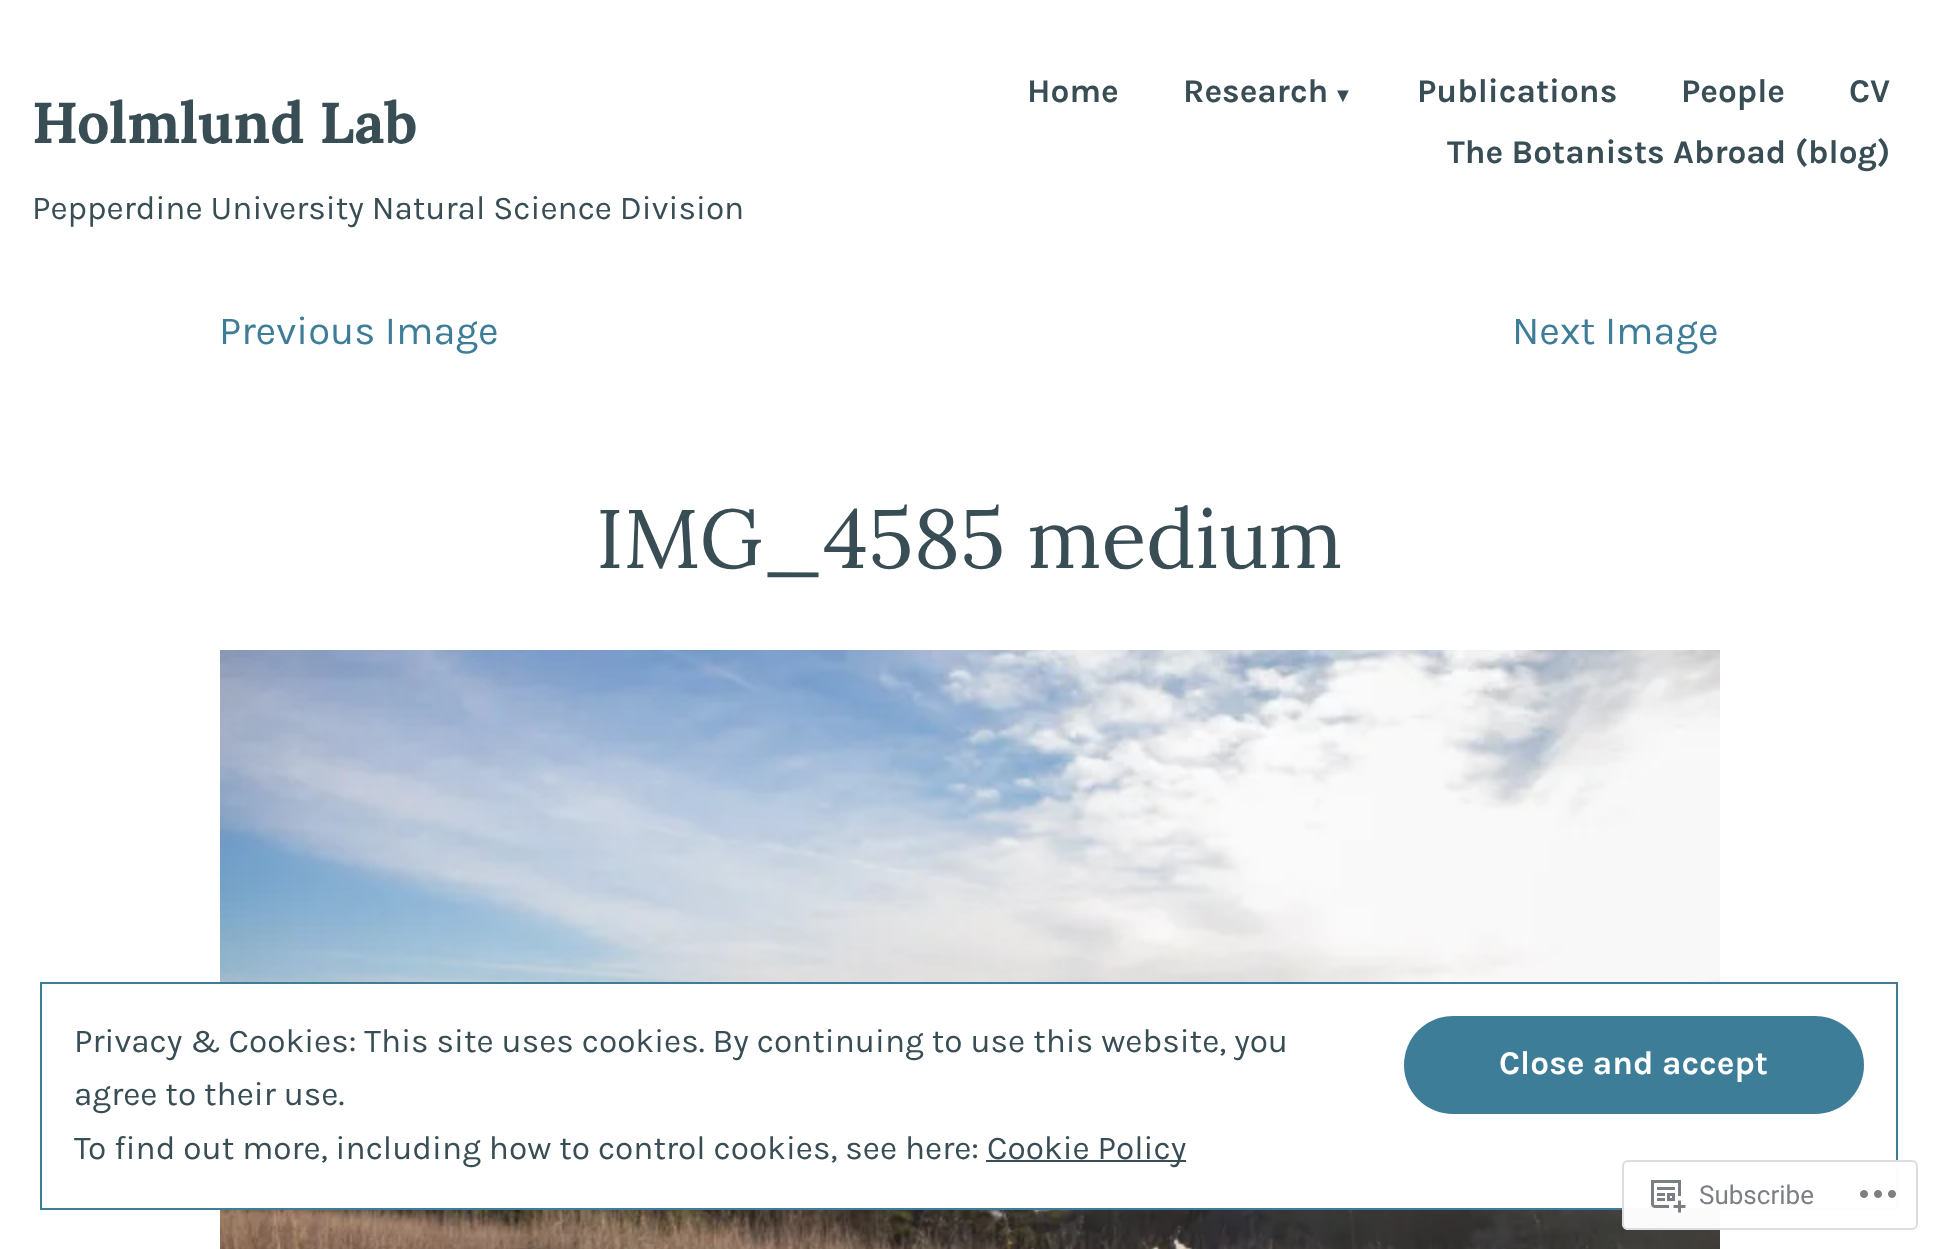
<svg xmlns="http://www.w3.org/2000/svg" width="1937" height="1249">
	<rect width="100%" height="100%" fill="#FFFFFF" />
	<text x="32" y="143" font-family="Lora" font-size="57.5" font-weight="700" fill="#394D55">Holmlund Lab</text>
	<g font-family="Karla" font-size="33.35" font-weight="700" fill="#394D55">
		<text x="1027" y="102">Home</text>
		<text x="1183" y="102">Research</text>
	</g>
	<text x="1333" y="102" font-family="Liberation Sans" font-size="20" font-weight="700" fill="#394D55">▼</text>
	<g font-family="Karla" font-size="33.35" font-weight="700" fill="#394D55">
		<text x="1417" y="102">Publications</text>
		<text x="1681" y="102">People</text>
		<text x="1849" y="102">CV</text>
		<text x="1447" y="163">The Botanists Abroad (blog)</text>
	</g>
	<text x="32" y="219" font-family="Karla" font-size="33.35" fill="#394D55">Pepperdine University Natural Science Division</text>
	<g font-family="Karla" font-size="40" fill="#3E7D98">
		<text x="219" y="344">Previous Image</text>
		<text x="1512" y="344">Next Image</text>
	</g>
	<text x="596" y="568" font-family="Lora" font-size="83" fill="#394D55">IMG_4585 medium</text>
	<image x="220" y="650" width="1500" height="599" href="assets/img1.png" />
	<rect x="220" y="984" width="1500" height="224" fill="#FFFFFF" />
	<rect x="41" y="983" width="1856" height="226" fill="none" stroke="#3E7D98" stroke-width="2" />
	<text x="74" y="1052" font-family="Karla" font-size="33.35" fill="#394D55">Privacy &amp; Cookies: This site uses cookies. By continuing to use this website, you</text>
	<rect x="1404" y="1016" width="460" height="98" rx="49" fill="#3E7D98" />
	<text x="1499" y="1074" font-family="Karla" font-size="33.35" font-weight="700" fill="#FFFFFF">Close and accept</text>
	<g font-family="Karla" font-size="33.35" fill="#394D55">
		<text x="74" y="1105">agree to their use.</text>
		<text x="74" y="1159">To find out more, including how to control cookies, see here:</text>
	</g>
	<rect x="986" y="1160" width="200" height="2" fill="#394D55" />
	<text x="987" y="1159" font-family="Karla" font-size="33.35" fill="#394D55">Cookie Policy</text>
	<rect x="1622" y="1160" width="296" height="70" rx="6" fill="#FFFFFF" fill-opacity="0.98" />
	<rect x="1623" y="1161" width="294" height="68" rx="5" fill="none" stroke="#DCDCDE" stroke-opacity="0.98" stroke-width="2" />
	<image x="1651" y="1180" width="35" height="33" href="assets/img2.png" />
	<text x="1699" y="1204" font-family="Roboto" font-size="26" fill="#7B7F85">Subscribe</text>
	<image x="1860" y="1190" width="36" height="8" href="assets/img3.png" />
</svg>
